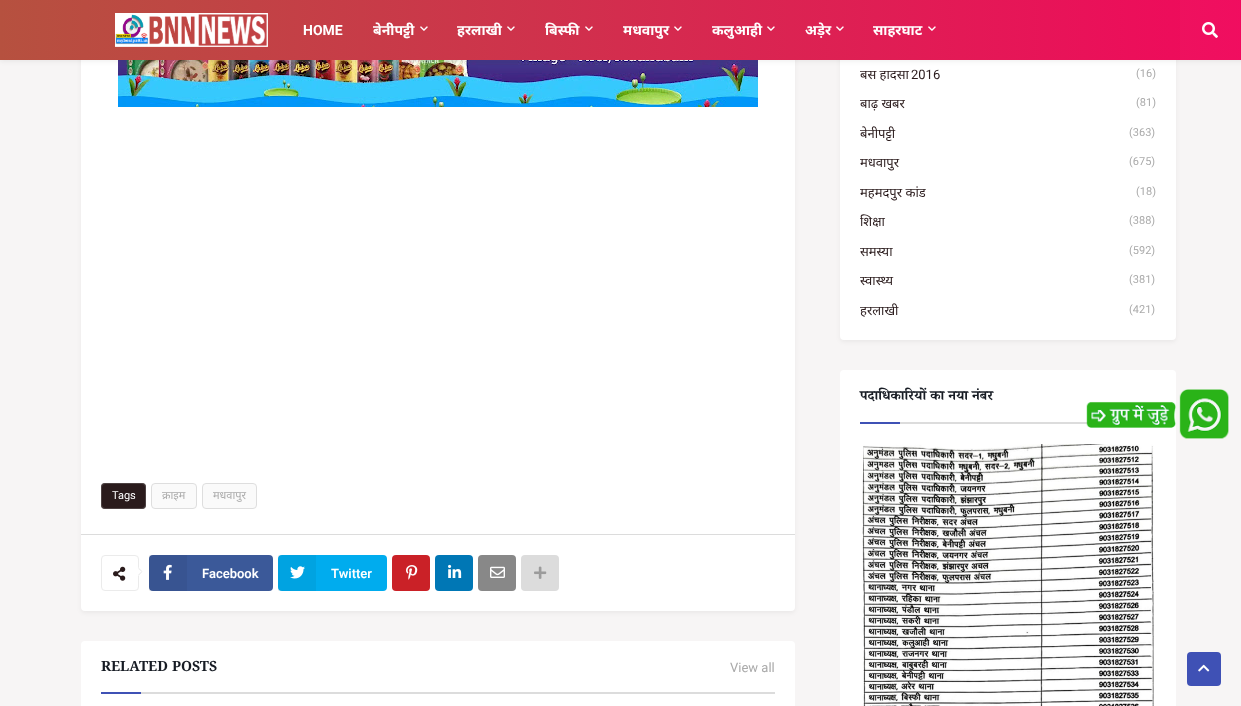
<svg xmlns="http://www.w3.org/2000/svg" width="1241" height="706">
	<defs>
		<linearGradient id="g1" gradientUnits="userSpaceOnUse" x1="0" y1="30" x2="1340" y2="30"><stop offset="0" stop-color="#B6513F" /><stop offset="1" stop-color="#F5035F" /></linearGradient>
		<linearGradient id="g2" gradientUnits="userSpaceOnUse" x1="0" y1="30" x2="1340" y2="30"><stop offset="0" stop-color="#B75443" /><stop offset="1" stop-color="#F50862" /></linearGradient>
	</defs>
	<rect width="100%" height="100%" fill="#F7F5F5" />
	<rect x="840" y="-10" width="336" height="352" rx="4" fill="#000000" fill-opacity="0.05" filter="blur(2px)" />
	<rect x="840" y="-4" width="336" height="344" rx="4" fill="#FFFFFF" />
	<rect x="81" y="-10" width="714" height="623" rx="4" fill="#000000" fill-opacity="0.05" filter="blur(2px)" />
	<rect x="81" y="-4" width="714" height="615" rx="4" fill="#FFFFFF" />
	<image x="118" y="60" width="640" height="47" href="assets/img12.png" />
	<rect x="0" y="2" width="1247" height="60" fill="#000000" fill-opacity="0.05" filter="blur(2px)" />
	<rect x="0" y="0" width="1241" height="60" fill="url(#g1)" />
	<rect x="1180" y="0" width="60" height="60" fill="url(#g2)" />
	<image x="115" y="13" width="153" height="34" href="assets/img1.png" />
	<text x="303" y="35" font-family="Roboto" font-size="14" font-weight="700" fill="#FFFFFF">HOME</text>
	<text x="373" y="35" font-family="Noto Sans" font-size="14" font-weight="700" fill="#FFFFFF">बेनीपट्टी</text>
	<image x="420" y="26" width="8" height="5" href="assets/img2.png" />
	<text x="457" y="35" font-family="Noto Sans" font-size="14" font-weight="700" fill="#FFFFFF">हरलाखी</text>
	<image x="507" y="26" width="8" height="5" href="assets/img3.png" />
	<text x="545" y="35" font-family="Noto Sans" font-size="14" font-weight="700" fill="#FFFFFF">बिस्फी</text>
	<image x="585" y="26" width="8" height="5" href="assets/img4.png" />
	<text x="623" y="35" font-family="Noto Sans" font-size="14" font-weight="700" fill="#FFFFFF">मधवापुर</text>
	<image x="674" y="26" width="8" height="5" href="assets/img5.png" />
	<text x="712" y="35" font-family="Noto Sans" font-size="14" font-weight="700" fill="#FFFFFF">कलुआही</text>
	<image x="767" y="26" width="8" height="5" href="assets/img6.png" />
	<text x="805" y="35" font-family="Noto Sans" font-size="14" font-weight="700" fill="#FFFFFF">अड़ेर</text>
	<image x="836" y="26" width="8" height="5" href="assets/img7.png" />
	<text x="873" y="35" font-family="Noto Sans" font-size="14" font-weight="700" fill="#FFFFFF">साहरघाट</text>
	<image x="928" y="26" width="8" height="5" href="assets/img8.png" />
	<image x="1202" y="22" width="16" height="16" href="assets/img9.png" />
	<text x="860" y="79" font-family="Noto Sans" font-size="13" fill="#2A1B1C">बस हादसा</text>
	<text x="911" y="79" font-family="Roboto" font-size="13" fill="#2A1B1C">2016</text>
	<text x="1136" y="77" font-family="Roboto" font-size="11" fill="#AAAAAA">(16)</text>
	<text x="860" y="108" font-family="Noto Sans" font-size="13" fill="#2A1B1C">बाढ़ खबर</text>
	<text x="1136" y="106" font-family="Roboto" font-size="11" fill="#AAAAAA">(81)</text>
	<text x="860" y="138" font-family="Noto Sans" font-size="13" fill="#2A1B1C">बेनीपट्टी</text>
	<text x="1129" y="136" font-family="Roboto" font-size="11" fill="#AAAAAA">(363)</text>
	<text x="860" y="167" font-family="Noto Sans" font-size="13" fill="#2A1B1C">मधवापुर</text>
	<text x="1129" y="165" font-family="Roboto" font-size="11" fill="#AAAAAA">(675)</text>
	<text x="860" y="197" font-family="Noto Sans" font-size="13" fill="#2A1B1C">महमदपुर कांड</text>
	<text x="1136" y="195" font-family="Roboto" font-size="11" fill="#AAAAAA">(18)</text>
	<text x="860" y="226" font-family="Noto Sans" font-size="13" fill="#2A1B1C">शिक्षा</text>
	<text x="1129" y="224" font-family="Roboto" font-size="11" fill="#AAAAAA">(388)</text>
	<text x="860" y="256" font-family="Noto Sans" font-size="13" fill="#2A1B1C">समस्या</text>
	<text x="1129" y="254" font-family="Roboto" font-size="11" fill="#AAAAAA">(592)</text>
	<text x="860" y="285" font-family="Noto Sans" font-size="13" fill="#2A1B1C">स्वास्थ्य</text>
	<text x="1129" y="283" font-family="Roboto" font-size="11" fill="#AAAAAA">(381)</text>
	<text x="860" y="315" font-family="Noto Sans" font-size="13" fill="#2A1B1C">हरलाखी</text>
	<text x="1129" y="313" font-family="Roboto" font-size="11" fill="#AAAAAA">(421)</text>
	<rect x="840" y="370" width="336" height="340" rx="4" fill="#FFFFFF" />
	<rect x="900" y="422" width="188" height="2" fill="#DCDCDC" />
	<text x="860" y="400" font-family="Noto Serif Devanagari" font-size="14" font-weight="700" fill="#171C24">पदाधिकारियों का नया नंबर</text>
	<rect x="860" y="422" width="40" height="2" fill="#3F51B5" />
	<image x="862" y="444" width="292" height="262" href="assets/img10.png" />
	<image x="1086" y="389" width="143" height="50" href="assets/img11.png" />
	<rect x="101" y="483" width="45" height="26" rx="4" fill="#2A1B1C" />
	<rect x="101.5" y="483.5" width="44" height="25" rx="3.5" fill="none" stroke="#9B9B9B" stroke-opacity="0.3" />
	<text x="112" y="499" font-family="Roboto" font-size="11" fill="#FFFFFF">Tags</text>
	<rect x="151.5" y="483.5" width="45" height="25" rx="3.5" fill="#FAFAFA" stroke="#DEDEDE" />
	<text x="162" y="499" font-family="Noto Sans" font-size="11" fill="#AAAAAA">क्राइम</text>
	<rect x="202.5" y="483.5" width="54" height="25" rx="3.5" fill="#FAFAFA" stroke="#DEDEDE" />
	<text x="213" y="499" font-family="Noto Sans" font-size="11" fill="#AAAAAA">मधवापुर</text>
	<rect x="81" y="534" width="714" height="1" fill="#DCDCDC" />
	<rect x="101.5" y="555.5" width="37" height="35" rx="3.5" fill="none" stroke="#EBEBEB" />
	<image x="113" y="566" width="13" height="15" href="assets/img13.png" />
	<path d="M138.5 567.5L142.5 571.5L138.5 576L134.5 571.5Z" fill="#FFFFFF" />
	<path d="M138.5 567.5L142.5 571.5H141.5L138.5 569Z" fill="#EBEBEB" />
	<path d="M142.5 571.5L138.5 576V574.5L141.5 571.5Z" fill="#EBEBEB" />
	<rect x="149" y="555" width="124" height="36" rx="4" fill="#3B5999" />
	<rect x="149" y="555" width="38" height="36" fill="#000000" fill-opacity="0.05" />
	<image x="163" y="564" width="9" height="16" href="assets/img14.png" />
	<text x="202" y="578" font-family="Roboto" font-size="13" font-weight="600" fill="#FFFFFF">Facebook</text>
	<rect x="278" y="555" width="109" height="36" rx="4" fill="#00ACEE" />
	<rect x="278" y="555" width="38" height="36" fill="#000000" fill-opacity="0.05" />
	<image x="290" y="566" width="15" height="13" href="assets/img15.png" />
	<text x="331" y="578" font-family="Roboto" font-size="13" font-weight="600" fill="#FFFFFF">Twitter</text>
	<rect x="392" y="555" width="38" height="36" rx="4" fill="#CA2127" />
	<image x="406" y="565" width="12" height="15" href="assets/img16.png" />
	<rect x="435" y="555" width="38" height="36" rx="4" fill="#0077B5" />
	<image x="448" y="564" width="14" height="14" href="assets/img17.png" />
	<rect x="478" y="555" width="38" height="36" rx="4" fill="#888888" />
	<image x="490" y="566" width="15" height="12" href="assets/img18.png" />
	<rect x="521" y="555" width="38" height="36" rx="4" fill="#DCDCDC" />
	<image x="534" y="566" width="13" height="13" href="assets/img19.png" />
	<rect x="81" y="641" width="714" height="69" rx="4" fill="#FFFFFF" />
	<rect x="141" y="692" width="634" height="2" fill="#DCDCDC" />
	<text x="101" y="671" font-family="Noto Serif Devanagari" font-size="14" font-weight="700" fill="#171C24">RELATED POSTS</text>
	<text x="730" y="672" font-family="Roboto" font-size="13" fill="#AAAAAA">View all</text>
	<rect x="101" y="692" width="40" height="2" fill="#3F51B5" />
	<rect x="1187" y="652" width="34" height="34" rx="4" fill="#3F51B5" />
	<image x="1198" y="664" width="12" height="8" href="assets/img20.png" />
</svg>
